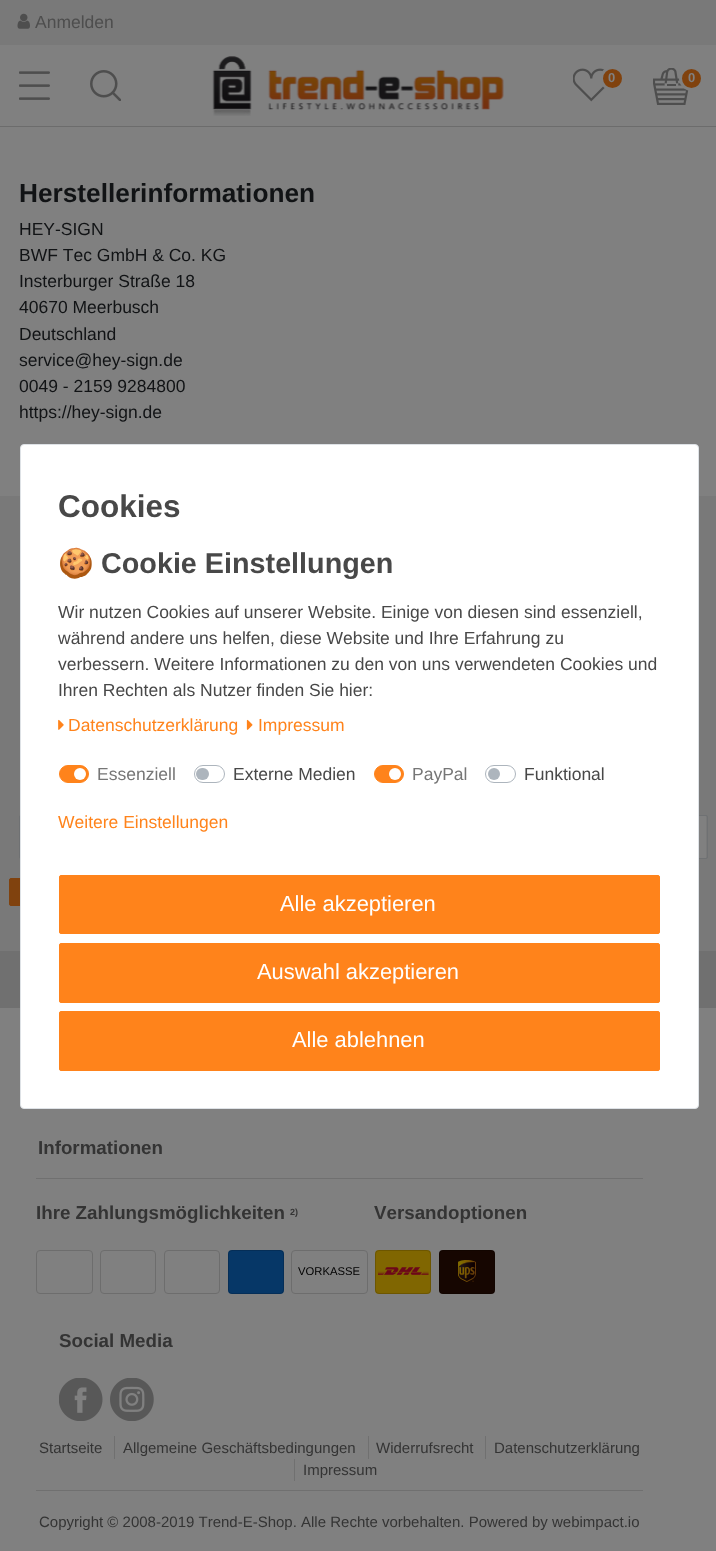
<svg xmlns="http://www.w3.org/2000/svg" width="716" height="1551">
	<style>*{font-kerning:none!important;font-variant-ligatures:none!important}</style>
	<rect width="100%" height="100%" fill="#808080" />
	<rect x="0" y="0" width="716" height="45" fill="#797979" />
	<image x="17" y="13" width="13" height="16" href="assets/img1.png" />
	<text x="35" y="28" font-family="Liberation Sans" font-size="17.5" fill="#4E4E4E">Anmelden</text>
	<rect x="0" y="126" width="716" height="1" fill="#6C6C6C" />
	<image x="19" y="71" width="31" height="29" href="assets/img2.png" />
	<image x="90" y="70" width="31" height="31" href="assets/img3.png" />
	<image x="212" y="56" width="292" height="60" href="assets/img4.png" />
	<image x="573" y="68" width="32" height="34" href="assets/img5.png" />
	<circle cx="612.5" cy="78.5" r="11" fill="#80420E" stroke="#808080" stroke-width="3" />
	<text x="608" y="82" font-family="Liberation Sans" font-size="13" font-weight="700" fill="#808080">0</text>
	<image x="653" y="68" width="36" height="37" href="assets/img6.png" />
	<circle cx="691.5" cy="78.5" r="11" fill="#80420E" stroke="#808080" stroke-width="3" />
	<text x="688" y="82" font-family="Liberation Sans" font-size="13" font-weight="700" fill="#808080">0</text>
	<text x="19" y="202" font-family="Liberation Sans" font-size="26.25" font-weight="700" fill="#111315">Herstellerinformationen</text>
	<g font-family="Liberation Sans" font-size="17.5" fill="#111315">
		<text x="19" y="235">HEY-SIGN</text>
		<text x="19" y="261">BWF Tec GmbH &amp; Co. KG</text>
		<text x="19" y="287">Insterburger Straße 18</text>
		<text x="19" y="313">40670 Meerbusch</text>
		<text x="19" y="340">Deutschland</text>
		<text x="19" y="366">service@hey-sign.de</text>
		<text x="19" y="392">0049 - 2159 9284800</text>
		<text x="19" y="418">https://hey-sign.de</text>
	</g>
	<rect x="0" y="496" width="716" height="455" fill="#797979" />
	<rect x="19.5" y="815.5" width="688" height="43" rx="1.5" fill="none" stroke="#6F7173" />
	<rect x="20" y="816" width="686" height="42" rx="0.5" fill="#808080" />
	<rect x="9.5" y="878.5" width="688" height="27" rx="1.5" fill="#80420E" stroke="#80420E" />
	<rect x="0" y="951" width="716" height="57" fill="#707070" />
	<rect x="20.5" y="444.5" width="678" height="664" rx="3.5" fill="#FFFFFF" stroke="#DEE2E6" />
	<text x="58" y="517" font-family="Liberation Sans" font-size="31.5" font-weight="700" fill="#484848">Cookies</text>
	<text x="58" y="573" font-family="Noto Color Emoji" font-size="28.75" font-weight="700" fill="#484848">🍪</text>
	<text x="101" y="573" font-family="Liberation Sans" font-size="28.75" font-weight="700" fill="#484848">Cookie Einstellungen</text>
	<g font-family="Liberation Sans" font-size="17.5" fill="#484848">
		<text x="58" y="618">Wir nutzen Cookies auf unserer Website. Einige von diesen sind essenziell,</text>
		<text x="58" y="644">während andere uns helfen, diese Website und Ihre Erfahrung zu</text>
		<text x="58" y="670">verbessern. Weitere Informationen zu den von uns verwendeten Cookies und</text>
		<text x="58" y="696">Ihren Rechten als Nutzer finden Sie hier:</text>
	</g>
	<image x="58" y="719" width="6" height="11" href="assets/img7.png" />
	<text x="68" y="731" font-family="Liberation Sans" font-size="17.5" fill="#FF831B">Datenschutzerklärung</text>
	<image x="246" y="719" width="7" height="11" href="assets/img8.png" />
	<text x="258" y="731" font-family="Liberation Sans" font-size="17.5" fill="#FF831B">Impressum</text>
	<rect x="59.5" y="765.5" width="29" height="17" rx="8.5" fill="#FF831B" stroke="#FF831B" />
	<text x="97" y="780" font-family="Liberation Sans" font-size="17.5" fill="#767676">Essenziell</text>
	<circle cx="80" cy="774" r="6" fill="#FFFFFF" />
	<rect x="194.5" y="765.5" width="30" height="17" rx="8.5" fill="none" stroke="#ADB5BD" />
	<text x="233" y="780" font-family="Liberation Sans" font-size="17.5" fill="#484848">Externe Medien</text>
	<rect x="196" y="768" width="13" height="12" rx="6" fill="#ADB5BD" />
	<rect x="374.5" y="765.5" width="29" height="17" rx="8.5" fill="#FF831B" stroke="#FF831B" />
	<text x="412" y="780" font-family="Liberation Sans" font-size="17.5" fill="#767676">PayPal</text>
	<circle cx="395" cy="774" r="6" fill="#FFFFFF" />
	<rect x="485.5" y="765.5" width="30" height="17" rx="8.5" fill="none" stroke="#ADB5BD" />
	<text x="524" y="780" font-family="Liberation Sans" font-size="17.5" fill="#484848">Funktional</text>
	<circle cx="494" cy="774" r="6" fill="#ADB5BD" />
	<text x="58" y="828" font-family="Liberation Sans" font-size="17.5" fill="#FF831B">Weitere Einstellungen</text>
	<rect x="59.5" y="875.5" width="600" height="58" rx="1.5" fill="#FF831B" stroke="#FF831B" />
	<text x="280" y="911" font-family="Liberation Sans" font-size="21.9" fill="#FFFFFF">Alle akzeptieren</text>
	<rect x="59.5" y="943.5" width="600" height="59" rx="1.5" fill="#FF831B" stroke="#FF831B" />
	<text x="257" y="979" font-family="Liberation Sans" font-size="21.9" fill="#FFFFFF">Auswahl akzeptieren</text>
	<rect x="59.5" y="1011.5" width="600" height="59" rx="1.5" fill="#FF831B" stroke="#FF831B" />
	<text x="292" y="1047" font-family="Liberation Sans" font-size="21.9" fill="#FFFFFF">Alle ablehnen</text>
	<text x="38" y="1154" font-family="Liberation Sans" font-size="18.75" font-weight="700" fill="#343434">Informationen</text>
	<rect x="36" y="1178" width="607" height="1" fill="#707070" />
	<text x="36" y="1219" font-family="Liberation Sans" font-size="18.75" font-weight="700" fill="#343434">Ihre Zahlungsmöglichkeiten</text>
	<text x="290" y="1215" font-family="Liberation Sans" font-size="9" font-weight="700" fill="#343434">2)</text>
	<rect x="36.5" y="1250.5" width="56" height="43" rx="3.5" fill="none" stroke="#6D6D6D" />
	<rect x="100.5" y="1250.5" width="55" height="43" rx="3.5" fill="none" stroke="#6D6D6D" />
	<rect x="164.5" y="1250.5" width="55" height="43" rx="3.5" fill="none" stroke="#6D6D6D" />
	<rect x="228" y="1250" width="56" height="44" rx="4" fill="#063767" />
	<rect x="228.5" y="1250.5" width="55" height="43" rx="3.5" fill="none" stroke="#000000" stroke-opacity="0.15" />
	<rect x="291.5" y="1250.5" width="76" height="43" rx="3.5" fill="none" stroke="#6D6D6D" />
	<text x="298" y="1275" font-family="Liberation Sans" font-size="11.25" fill="#000000">VORKASSE</text>
	<text x="374" y="1219" font-family="Liberation Sans" font-size="18.75" font-weight="700" fill="#343434">Versandoptionen</text>
	<rect x="375" y="1250" width="56" height="44" rx="4" fill="#806601" />
	<image x="378" y="1267" width="51" height="8" href="assets/img9.png" />
	<rect x="375.5" y="1250.5" width="55" height="43" rx="3.5" fill="none" stroke="#000000" stroke-opacity="0.15" />
	<rect x="439" y="1250" width="56" height="44" rx="4" fill="#160601" />
	<image x="458" y="1260" width="18" height="22" href="assets/img10.png" />
	<rect x="439.5" y="1250.5" width="55" height="43" rx="3.5" fill="none" stroke="#000000" stroke-opacity="0.15" />
	<text x="59" y="1347" font-family="Liberation Sans" font-size="18.75" font-weight="700" fill="#343434">Social Media</text>
	<image x="59" y="1378" width="44" height="43" href="assets/img11.png" />
	<image x="110" y="1378" width="44" height="43" href="assets/img12.png" />
	<text x="39" y="1453" font-family="Liberation Sans" font-size="15" fill="#343434">Startseite</text>
	<rect x="114" y="1436" width="1" height="23" fill="#707070" />
	<text x="123" y="1453" font-family="Liberation Sans" font-size="15" fill="#343434">Allgemeine Geschäftsbedingungen</text>
	<rect x="368" y="1436" width="1" height="23" fill="#707070" />
	<text x="376" y="1453" font-family="Liberation Sans" font-size="15" fill="#343434">Widerrufsrecht</text>
	<rect x="485" y="1436" width="1" height="23" fill="#707070" />
	<text x="494" y="1453" font-family="Liberation Sans" font-size="15" fill="#343434">Datenschutzerklärung</text>
	<rect x="294" y="1459" width="1" height="22" fill="#707070" />
	<text x="303" y="1475" font-family="Liberation Sans" font-size="15" fill="#343434">Impressum</text>
	<rect x="36" y="1490" width="607" height="1" fill="#707070" />
	<text x="39" y="1527" font-family="Liberation Sans" font-size="15" fill="#343434">Copyright © 2008-2019 Trend-E-Shop. Alle Rechte vorbehalten. Powered by webimpact.io</text>
</svg>
